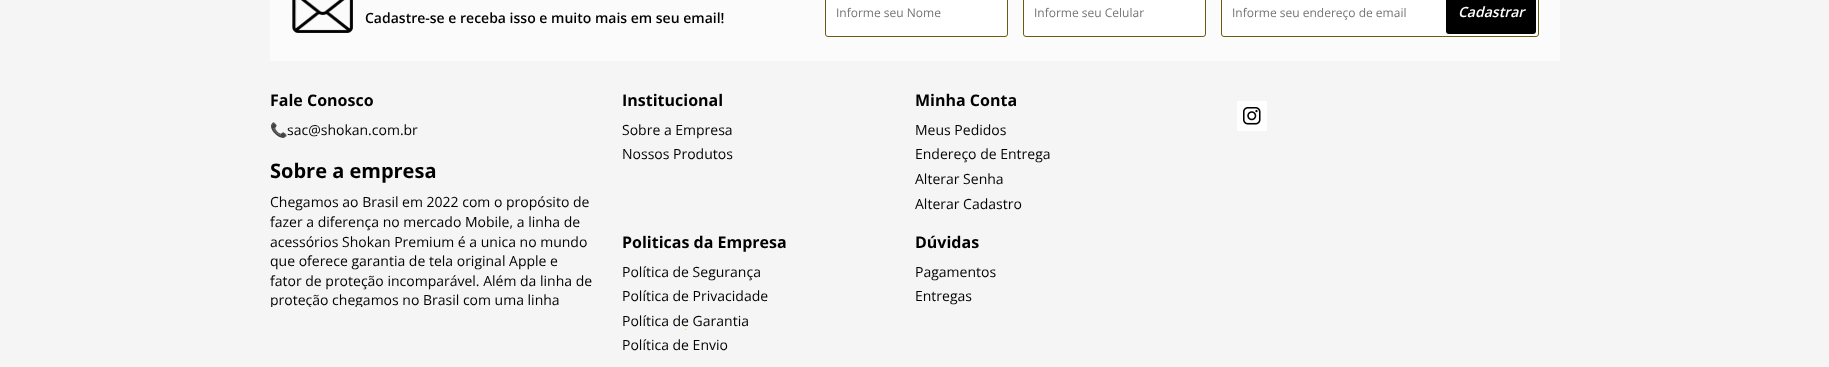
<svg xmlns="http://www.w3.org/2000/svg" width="1829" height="367">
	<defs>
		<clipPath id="clip1"><rect x="270" y="192" width="322" height="115" /></clipPath>
	</defs>
	<rect width="100%" height="100%" fill="#F5F5F5" />
	<rect x="270" y="0" width="1290" height="61" fill="#FBFBFB" />
	<image x="292" y="0" width="61" height="33" href="assets/img1.png" />
	<text x="365" y="23" font-family="Open Sans" font-size="14" font-weight="600" fill="#000000">Cadastre-se e receba isso e muito mais em seu email!</text>
	<rect x="825.5" y="-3.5" width="182" height="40" rx="2.5" fill="#FFFFFF" stroke="#6B5B0D" />
	<text x="836" y="17" font-family="Open Sans" font-size="12" fill="#757575">Informe seu Nome</text>
	<rect x="1023.5" y="-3.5" width="182" height="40" rx="2.5" fill="#FFFFFF" stroke="#6B5B0D" />
	<text x="1034" y="17" font-family="Open Sans" font-size="12" fill="#757575">Informe seu Celular</text>
	<rect x="1221.5" y="-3.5" width="317" height="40" rx="2.5" fill="#FFFFFF" stroke="#6B5B0D" />
	<text x="1232" y="17" font-family="Open Sans" font-size="12" fill="#757575">Informe seu endereço de email</text>
	<rect x="1446" y="-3" width="90" height="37" rx="3" fill="#000000" />
	<text x="1458" y="17" font-family="Open Sans" font-size="14" font-weight="600" font-style="italic" fill="#FFFFFF">Cadastrar</text>
	<text x="270" y="106" font-family="Open Sans" font-size="16" font-weight="700" fill="#000000">Fale Conosco</text>
	<text x="270" y="135" font-family="Noto Color Emoji" font-size="14" fill="#000000">📞</text>
	<text x="287" y="135" font-family="Open Sans" font-size="14" fill="#000000">sac@shokan.com.br</text>
	<text x="270" y="178" font-family="Open Sans" font-size="20" font-weight="700" fill="#000000">Sobre a empresa</text>
	<g font-family="Open Sans" font-size="14" fill="#000000">
		<text x="270" y="207">Chegamos ao Brasil em 2022 com o propósito de</text>
		<text x="270" y="227">fazer a diferença no mercado Mobile, a linha de</text>
		<text x="270" y="247">acessórios Shokan Premium é a unica no mundo</text>
		<text x="270" y="266">que oferece garantia de tela original Apple e</text>
		<text x="270" y="286">fator de proteção incomparável. Além da linha de</text>
	</g>
	<g clip-path="url(#clip1)">
		<text x="270" y="305" font-family="Open Sans" font-size="14" fill="#000000">proteção chegamos no Brasil com uma linha</text>
	</g>
	<text x="622" y="106" font-family="Open Sans" font-size="16" font-weight="700" fill="#000000">Institucional</text>
	<g font-family="Open Sans" font-size="14" fill="#000000">
		<text x="622" y="135">Sobre a Empresa</text>
		<text x="622" y="159">Nossos Produtos</text>
	</g>
	<text x="915" y="106" font-family="Open Sans" font-size="16" font-weight="700" fill="#000000">Minha Conta</text>
	<g font-family="Open Sans" font-size="14" fill="#000000">
		<text x="915" y="135">Meus Pedidos</text>
		<text x="915" y="159">Endereço de Entrega</text>
		<text x="915" y="184">Alterar Senha</text>
		<text x="915" y="209">Alterar Cadastro</text>
	</g>
	<text x="622" y="248" font-family="Open Sans" font-size="16" font-weight="700" fill="#000000">Politicas da Empresa</text>
	<g font-family="Open Sans" font-size="14" fill="#000000">
		<text x="622" y="277">Política de Segurança</text>
		<text x="622" y="301">Política de Privacidade</text>
		<text x="622" y="326">Política de Garantia</text>
	</g>
	<rect x="685" y="329" width="1" height="1" fill="#FCCF2A" />
	<text x="622" y="350" font-family="Open Sans" font-size="14" fill="#000000">Política de Envio</text>
	<text x="915" y="248" font-family="Open Sans" font-size="16" font-weight="700" fill="#000000">Dúvidas</text>
	<g font-family="Open Sans" font-size="14" fill="#000000">
		<text x="915" y="277">Pagamentos</text>
		<text x="915" y="301">Entregas</text>
	</g>
	<rect x="1237" y="101" width="30" height="30" fill="#FFFFFF" />
	<image x="1243" y="107" width="18" height="18" href="assets/img2.png" />
</svg>
